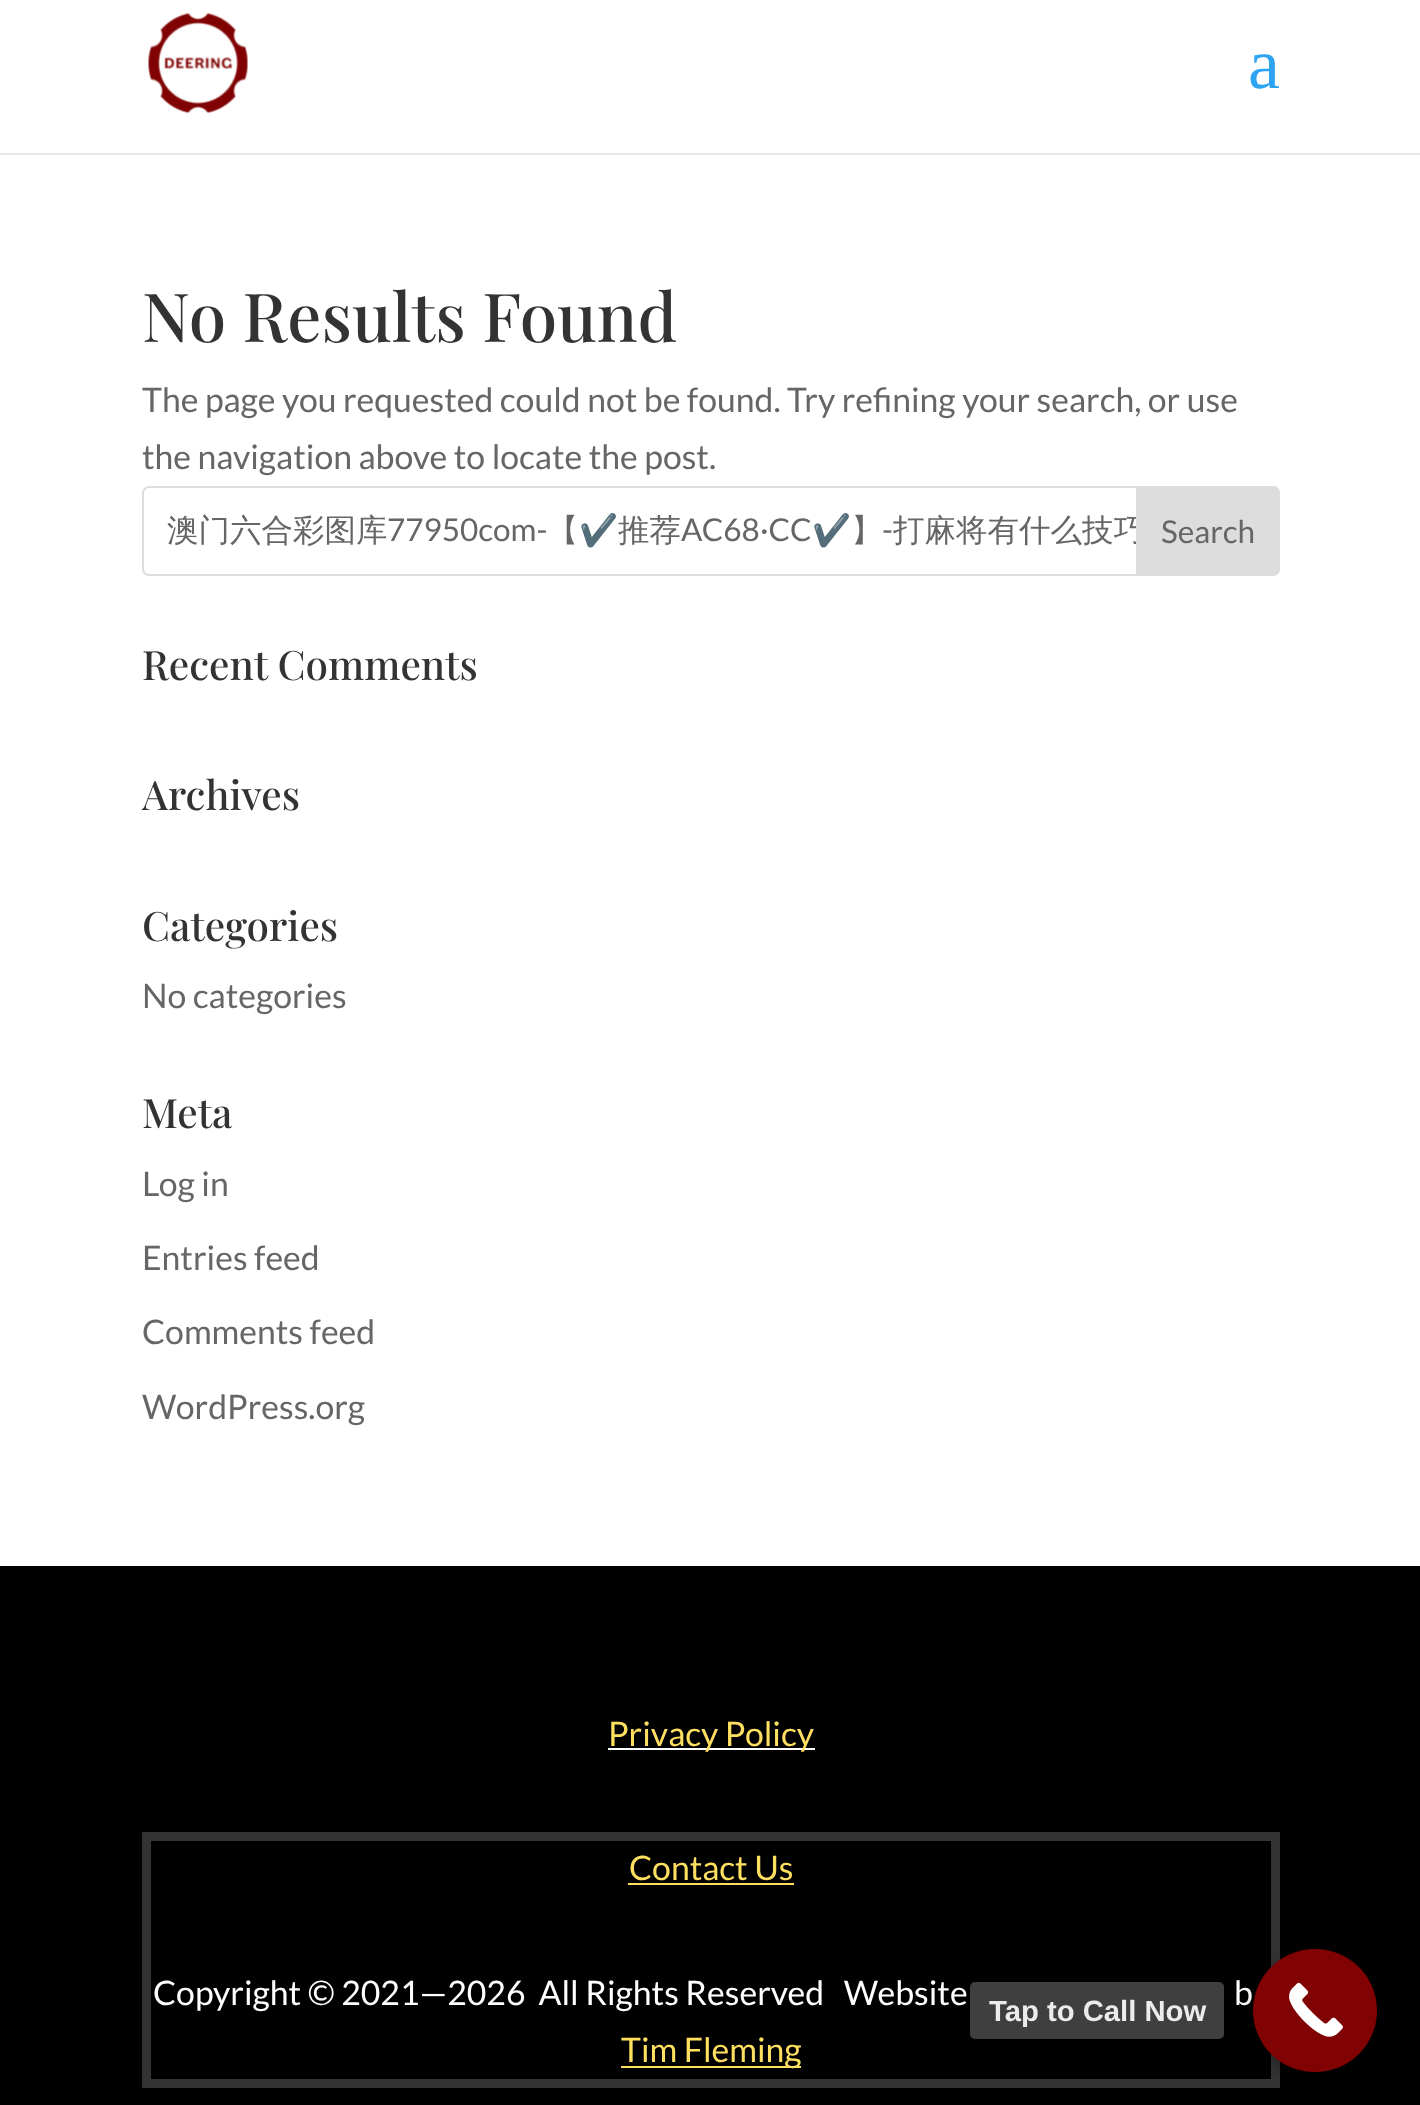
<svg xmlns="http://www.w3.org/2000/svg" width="1420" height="2105">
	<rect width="100%" height="100%" fill="#FFFFFF" />
	<rect x="0" y="153" width="1420" height="2" fill="#E6E6E6" />
	<image x="148" y="13" width="100" height="100" href="assets/img1.png" />
	<text x="1248" y="88" font-family="Liberation Serif" font-size="72" fill="#2EA3F2">a</text>
	<text x="142" y="342" font-family="Playfair Display" font-size="67.5" font-weight="500" fill="#333333">No Results Found</text>
	<g font-family="Lato" font-size="33.75" fill="#666666">
		<text x="142" y="412">The page you requested could not be found. Try refining your search, or use</text>
		<text x="142" y="469">the navigation above to locate the post.</text>
	</g>
	<rect x="143" y="487" width="1136" height="88" rx="6" fill="none" stroke="#DDDDDD" stroke-width="2" />
	<text x="167" y="541" font-family="WenQuanYi Zen Hei" font-size="31.5" font-weight="500" fill="#666666">澳门六合彩图库</text>
	<text x="387" y="541" font-family="Lato" font-size="31.5" fill="#666666">77950com-</text>
	<text x="547" y="541" font-family="WenQuanYi Zen Hei" font-size="31.5" font-weight="500" fill="#666666">【</text>
	<text x="579" y="541" font-family="Noto Color Emoji" font-size="31.5" fill="#666666">✔️</text>
	<text x="618" y="541" font-family="WenQuanYi Zen Hei" font-size="31.5" font-weight="500" fill="#666666">推荐</text>
	<text x="681" y="541" font-family="Lato" font-size="31.5" fill="#666666">AC68·CC</text>
	<text x="812" y="541" font-family="Noto Color Emoji" font-size="31.5" fill="#666666">✔️</text>
	<text x="851" y="541" font-family="WenQuanYi Zen Hei" font-size="31.5" font-weight="500" fill="#666666">】</text>
	<text x="882" y="541" font-family="Lato" font-size="31.5" fill="#666666">-</text>
	<text x="893" y="541" font-family="WenQuanYi Zen Hei" font-size="31.5" font-weight="500" fill="#666666">打麻将有什么技巧</text>
	<path d="M1137 487H1273C1276.5 487 1279 489.5 1279 493V569C1279 572.5 1276.5 575 1273 575H1137Z" fill="#DDDDDD" stroke="#DDDDDD" stroke-width="2" />
	<text x="1161" y="543" font-family="Lato" font-size="31.5" fill="#666666">Search</text>
	<g font-family="Playfair Display" font-size="40.5" font-weight="500" fill="#333333">
		<text x="142" y="680">Recent Comments</text>
		<text x="142" y="810">Archives</text>
		<text x="142" y="941">Categories</text>
	</g>
	<text x="142" y="1008" font-family="Lato" font-size="33.75" fill="#666666">No categories</text>
	<text x="142" y="1128" font-family="Playfair Display" font-size="40.5" font-weight="500" fill="#333333">Meta</text>
	<g font-family="Lato" font-size="33.75" fill="#666666">
		<text x="142" y="1196">Log in</text>
		<text x="142" y="1270">Entries feed</text>
		<text x="142" y="1344">Comments feed</text>
		<text x="142" y="1419">WordPress.org</text>
	</g>
	<rect x="0" y="1566" width="1420" height="539" fill="#000000" />
	<rect x="608" y="1748" width="207" height="2" fill="#FFFFFF" />
	<text x="608" y="1746" font-family="Lato" font-size="33.75" fill="#FFDF60">Privacy Policy</text>
	<rect x="146.5" y="1836.5" width="1129" height="247" fill="none" stroke="#333333" stroke-width="9" />
	<text x="629" y="1880" font-family="Lato" font-size="33.75" fill="#FFDF60">Contact Us</text>
	<rect x="628" y="1883" width="166" height="2" fill="#FFDF60" />
	<g font-family="Lato" font-size="33.75" fill="#FFFFFF">
		<text x="153" y="2005" xml:space="preserve">Copyright © 2021—2026  All Rights Reserved   Website</text>
		<text x="1234" y="2005">b</text>
	</g>
	<rect x="621" y="2066" width="180" height="2" fill="#FFDF60" />
	<text x="621" y="2062" font-family="Lato" font-size="33.75" fill="#FFDF60">Tim Fleming</text>
	<rect x="1253" y="1955" width="124" height="124" rx="62" fill="#000000" fill-opacity="0.3" filter="blur(7px)" />
	<rect x="1253" y="1949" width="124" height="123" rx="61.5" fill="#800202" />
	<image x="1289" y="1982" width="54" height="55" href="assets/img2.png" />
	<rect x="970" y="1982" width="254" height="57" rx="5" fill="#464646" fill-opacity="0.9" />
	<text x="989" y="2021" font-family="Liberation Sans" font-size="29.25" font-weight="700" fill="#ECECEC">Tap to Call Now</text>
</svg>
